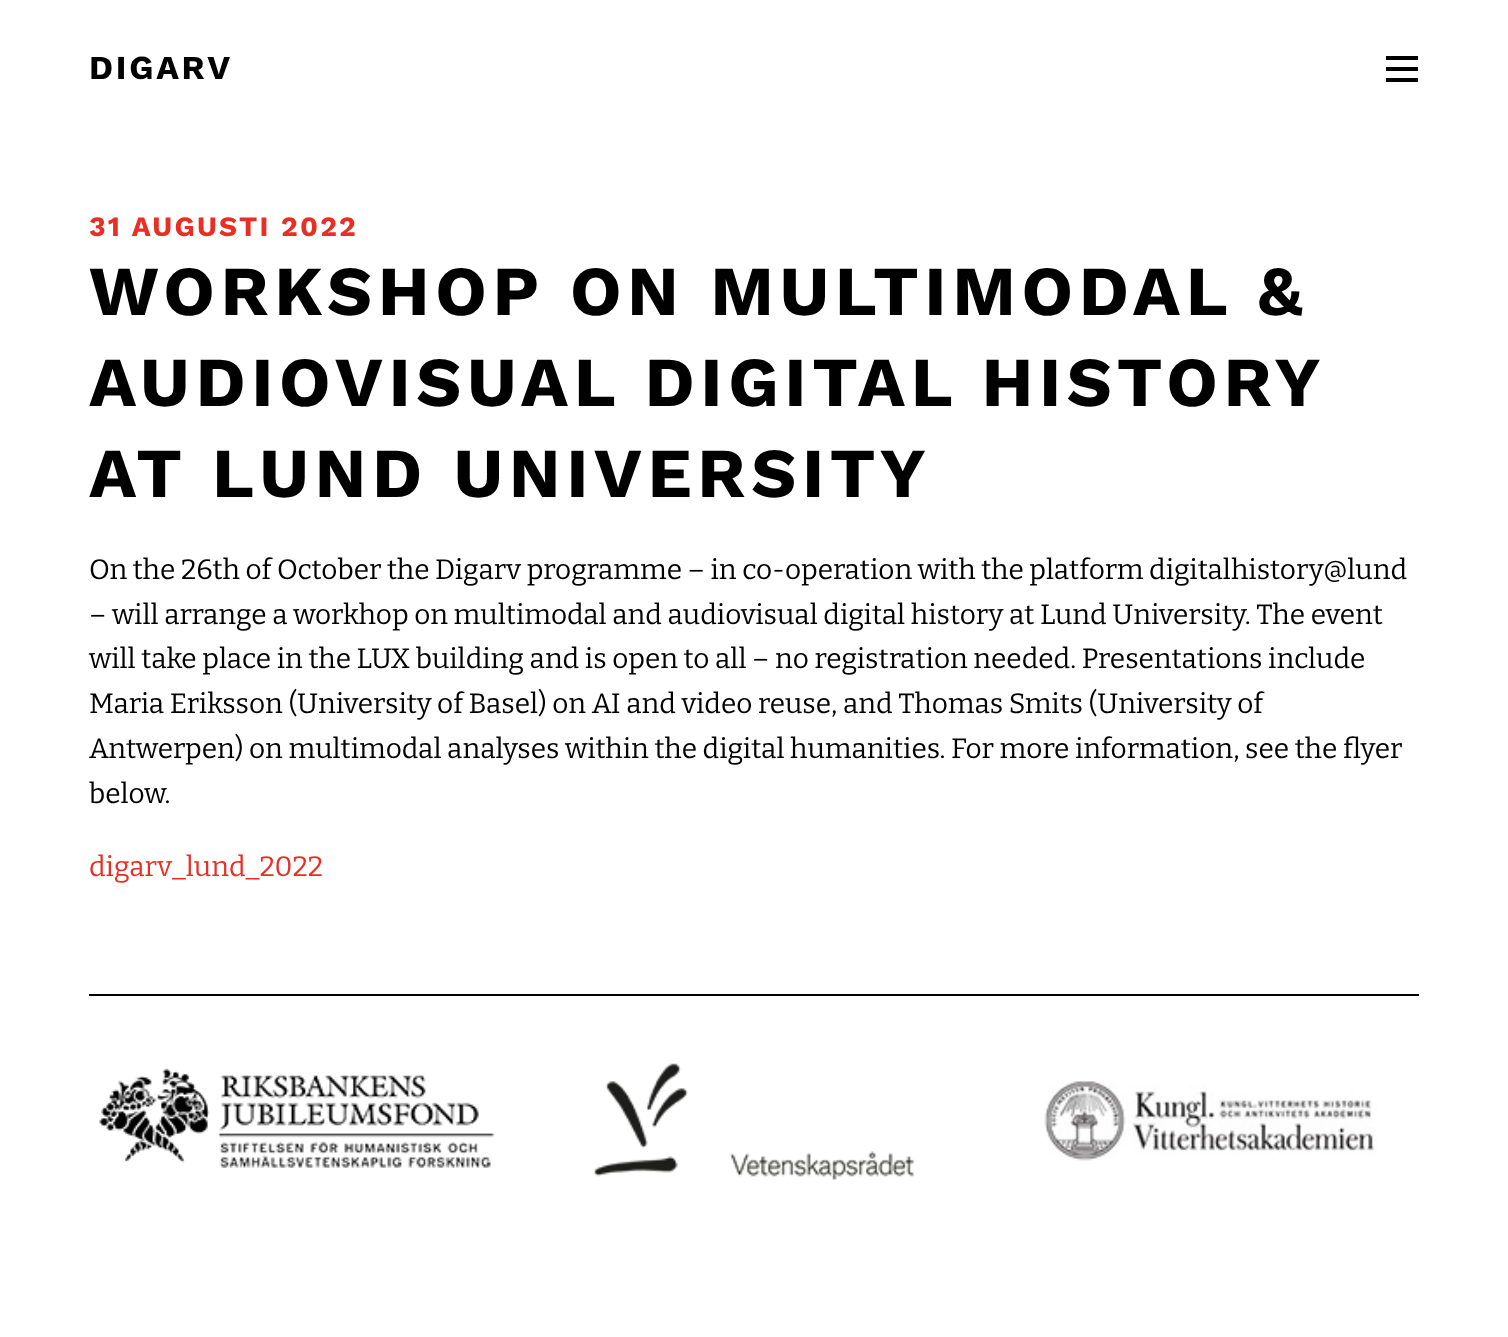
<svg xmlns="http://www.w3.org/2000/svg" width="1508" height="1337">
	<rect width="100%" height="100%" fill="#FFFFFF" />
	<text x="89" y="79" font-family="Work Sans" font-size="33.5" font-weight="700" letter-spacing="2.75" fill="#000000">DIGARV</text>
	<rect x="1386" y="78" width="32" height="4" fill="#000000" />
	<rect x="1386" y="67" width="32" height="4" fill="#000000" />
	<rect x="1386" y="56" width="32" height="4" fill="#000000" />
	<text x="89" y="236" font-family="Work Sans" font-size="28" font-weight="700" letter-spacing="2.25" fill="#E82E25">31 AUGUSTI 2022</text>
	<g font-family="Work Sans" font-size="70" font-weight="700" letter-spacing="5.6" fill="#000000">
		<text x="89" y="315">WORKSHOP ON MULTIMODAL &amp;</text>
		<text x="89" y="406" word-spacing="-1">AUDIOVISUAL DIGITAL HISTORY</text>
		<text x="89" y="497">AT LUND UNIVERSITY</text>
	</g>
	<g font-family="Bitter" font-size="28" fill="#000000">
		<text x="89" y="579">On the 26th of October the Digarv programme – in co-operation with the platform digitalhistory@lund</text>
		<text x="89" y="624">– will arrange a workhop on multimodal and audiovisual digital history at Lund University. The event</text>
		<text x="89" y="668">will take place in the LUX building and is open to all – no registration needed. Presentations include</text>
		<text x="89" y="713">Maria Eriksson (University of Basel) on AI and video reuse, and Thomas Smits (University of</text>
		<text x="89" y="758">Antwerpen) on multimodal analyses within the digital humanities. For more information, see the flyer</text>
		<text x="89" y="803">below.</text>
	</g>
	<text x="89" y="876" font-family="Bitter" font-size="28" fill="#E82E25">digarv_lund_2022</text>
	<rect x="89" y="994" width="1330" height="2" fill="#000000" />
	<image x="99" y="1068" width="396" height="100" href="assets/img1.png" />
	<image x="594" y="1063" width="320" height="117" href="assets/img2.png" />
	<image x="1044" y="1081" width="333" height="80" href="assets/img3.png" />
</svg>
